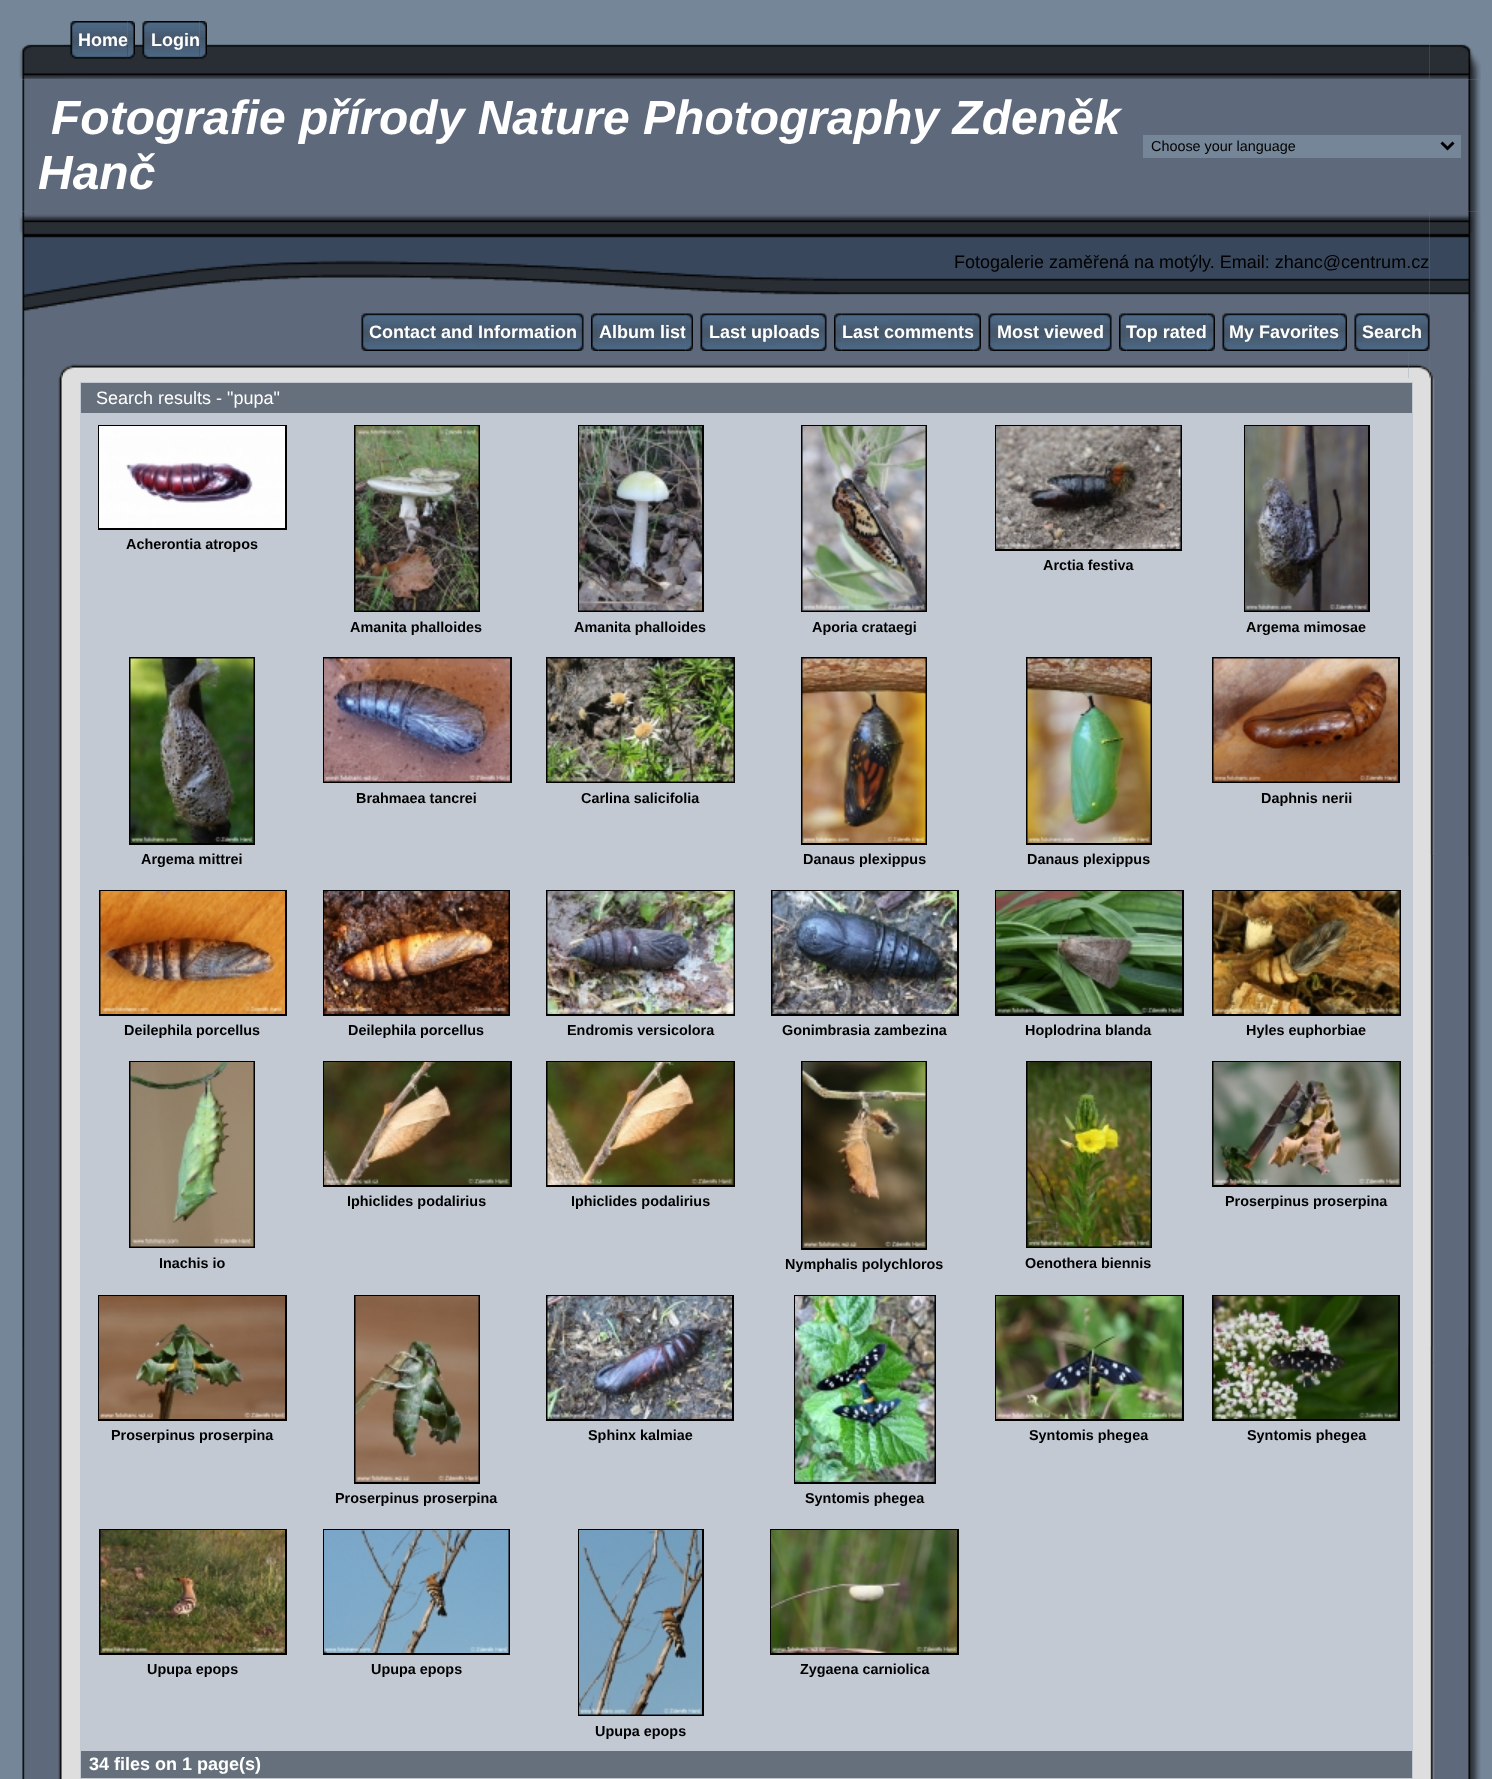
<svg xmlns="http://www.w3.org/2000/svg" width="1492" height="1779">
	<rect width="100%" height="100%" fill="#758698" />
	<image x="63" y="44" width="1367" height="35" href="assets/img1.png" />
	<image x="70" y="21" width="8" height="38" href="assets/img2.png" />
	<image x="78" y="21" width="50" height="38" href="assets/img3.png" />
	<text x="78" y="46" font-family="Liberation Sans" font-size="18" font-weight="700" fill="#FFFFFF">Home</text>
	<image x="127" y="21" width="8" height="38" href="assets/img4.png" />
	<image x="142" y="21" width="8" height="38" href="assets/img2.png" />
	<image x="150" y="21" width="50" height="38" href="assets/img5.png" />
	<text x="151" y="46" font-family="Liberation Sans" font-size="18" font-weight="700" fill="#FFFFFF">Login</text>
	<image x="199" y="21" width="8" height="38" href="assets/img6.png" />
	<image x="19" y="44" width="44" height="36" href="assets/img7.png" />
	<image x="1429" y="44" width="52" height="36" href="assets/img8.png" />
	<image x="22" y="79" width="5" height="133" href="assets/img9.png" />
	<rect x="27" y="79" width="1442" height="133" fill="#5E697B" />
	<g font-family="Liberation Sans" font-size="48" font-weight="700" font-style="italic" fill="#FFFFFF">
		<text x="51" y="134">Fotografie přírody Nature Photography Zdeněk</text>
		<text x="38" y="189">Hanč</text>
	</g>
	<rect x="1143" y="135" width="318" height="23" fill="#758698" />
	<path d="M1441.5 142.5L1447.5 148.5L1453.5 142.5" fill="none" stroke="#000000" stroke-width="3" />
	<text x="1151" y="151" font-family="Liberation Sans" font-size="14.4" fill="#000000">Choose your language</text>
	<image x="1468" y="79" width="13" height="133" href="assets/img10.png" />
	<image x="19" y="211" width="821" height="101" href="assets/img11.png" />
	<image x="840" y="212" width="590" height="100" href="assets/img12.png" />
	<text x="954" y="268" font-family="Liberation Sans" font-size="18" fill="#000000">Fotogalerie zaměřená na motýly. Email: zhanc@centrum.cz</text>
	<image x="1429" y="211" width="52" height="101" href="assets/img13.png" />
	<image x="22" y="312" width="41" height="39" href="assets/img14.png" />
	<rect x="63" y="312" width="1367" height="39" fill="#5E697B" />
	<image x="361" y="313" width="8" height="38" href="assets/img15.png" />
	<image x="369" y="313" width="207" height="38" href="assets/img16.png" />
	<text x="369" y="338" font-family="Liberation Sans" font-size="18" font-weight="700" fill="#FFFFFF">Contact and Information</text>
	<image x="576" y="313" width="8" height="38" href="assets/img17.png" />
	<image x="598" y="313" width="88" height="38" href="assets/img19.png" />
	<image x="591" y="313" width="8" height="38" href="assets/img18.png" />
	<text x="599" y="338" font-family="Liberation Sans" font-size="18" font-weight="700" fill="#FFFFFF">Album list</text>
	<image x="685" y="313" width="8" height="38" href="assets/img20.png" />
	<image x="700" y="313" width="8" height="38" href="assets/img15.png" />
	<image x="708" y="313" width="111" height="38" href="assets/img21.png" />
	<text x="709" y="338" font-family="Liberation Sans" font-size="18" font-weight="700" fill="#FFFFFF">Last uploads</text>
	<image x="819" y="313" width="8" height="38" href="assets/img22.png" />
	<image x="841" y="313" width="133" height="38" href="assets/img24.png" />
	<image x="834" y="313" width="8" height="38" href="assets/img23.png" />
	<text x="842" y="338" font-family="Liberation Sans" font-size="18" font-weight="700" fill="#FFFFFF">Last comments</text>
	<image x="973" y="313" width="8" height="38" href="assets/img25.png" />
	<image x="988" y="313" width="8" height="38" href="assets/img26.png" />
	<image x="996" y="313" width="108" height="38" href="assets/img27.png" />
	<text x="997" y="338" font-family="Liberation Sans" font-size="18" font-weight="700" fill="#FFFFFF">Most viewed</text>
	<image x="1104" y="313" width="8" height="38" href="assets/img17.png" />
	<image x="1126" y="313" width="82" height="38" href="assets/img28.png" />
	<image x="1119" y="313" width="8" height="38" href="assets/img18.png" />
	<text x="1126" y="338" font-family="Liberation Sans" font-size="18" font-weight="700" fill="#FFFFFF">Top rated</text>
	<image x="1207" y="313" width="8" height="38" href="assets/img29.png" />
	<image x="1222" y="313" width="8" height="38" href="assets/img26.png" />
	<image x="1230" y="313" width="110" height="38" href="assets/img30.png" />
	<text x="1229" y="338" font-family="Liberation Sans" font-size="18" font-weight="700" fill="#FFFFFF">My Favorites</text>
	<image x="1339" y="313" width="8" height="38" href="assets/img31.png" />
	<image x="1354" y="313" width="8" height="38" href="assets/img15.png" />
	<image x="1362" y="313" width="60" height="38" href="assets/img32.png" />
	<text x="1362" y="338" font-family="Liberation Sans" font-size="18" font-weight="700" fill="#FFFFFF">Search</text>
	<image x="1422" y="313" width="8" height="38" href="assets/img22.png" />
	<image x="1430" y="312" width="51" height="39" href="assets/img33.png" />
	<image x="22" y="351" width="41" height="27" href="assets/img34.png" />
	<image x="63" y="351" width="21" height="27" href="assets/img35.png" />
	<image x="84" y="351" width="1325" height="27" href="assets/img36.png" />
	<image x="1408" y="351" width="22" height="27" href="assets/img37.png" />
	<image x="1429" y="351" width="52" height="27" href="assets/img38.png" />
	<image x="22" y="378" width="41" height="1401" href="assets/img39.png" />
	<rect x="23" y="855" width="1" height="492" fill="#0B0D0F" />
	<rect x="63" y="378" width="1367" height="1401" fill="#DEDEDE" />
	<rect x="80" y="382" width="1333" height="1397" fill="#C2C9D3" />
	<rect x="81" y="383" width="1331" height="30" fill="#66707C" />
	<text x="96" y="404" font-family="Liberation Sans" font-size="18" fill="#FFFFFF">Search results - "pupa"</text>
	<rect x="99" y="426" width="187" height="103" fill="none" stroke="#000000" stroke-width="2" />
	<image x="99" y="426" width="186" height="102" href="assets/img40.png" />
	<text x="126" y="549" font-family="Liberation Sans" font-size="14.4" font-weight="700" fill="#000000">Acherontia atropos</text>
	<rect x="996" y="426" width="185" height="124" fill="none" stroke="#000000" stroke-width="2" />
	<image x="996" y="426" width="185" height="123" href="assets/img41.png" />
	<text x="1043" y="570" font-family="Liberation Sans" font-size="14.4" font-weight="700" fill="#000000">Arctia festiva</text>
	<rect x="355" y="426" width="124" height="185" fill="none" stroke="#000000" stroke-width="2" />
	<image x="355" y="426" width="124" height="185" href="assets/img42.png" />
	<text x="350" y="632" font-family="Liberation Sans" font-size="14.4" font-weight="700" fill="#000000">Amanita phalloides</text>
	<rect x="579" y="426" width="124" height="185" fill="none" stroke="#000000" stroke-width="2" />
	<image x="579" y="426" width="123" height="185" href="assets/img43.png" />
	<text x="574" y="632" font-family="Liberation Sans" font-size="14.4" font-weight="700" fill="#000000">Amanita phalloides</text>
	<rect x="802" y="426" width="124" height="185" fill="none" stroke="#000000" stroke-width="2" />
	<image x="802" y="426" width="124" height="185" href="assets/img44.png" />
	<text x="812" y="632" font-family="Liberation Sans" font-size="14.4" font-weight="700" fill="#000000">Aporia crataegi</text>
	<rect x="1245" y="426" width="124" height="185" fill="none" stroke="#000000" stroke-width="2" />
	<image x="1245" y="426" width="123" height="185" href="assets/img45.png" />
	<text x="1246" y="632" font-family="Liberation Sans" font-size="14.4" font-weight="700" fill="#000000">Argema mimosae</text>
	<rect x="324" y="658" width="187" height="124" fill="none" stroke="#000000" stroke-width="2" />
	<image x="324" y="658" width="186" height="124" href="assets/img46.png" />
	<text x="356" y="803" font-family="Liberation Sans" font-size="14.4" font-weight="700" fill="#000000">Brahmaea tancrei</text>
	<rect x="547" y="658" width="187" height="124" fill="none" stroke="#000000" stroke-width="2" />
	<image x="547" y="658" width="187" height="124" href="assets/img47.png" />
	<text x="581" y="803" font-family="Liberation Sans" font-size="14.4" font-weight="700" fill="#000000">Carlina salicifolia</text>
	<rect x="1213" y="658" width="186" height="124" fill="none" stroke="#000000" stroke-width="2" />
	<image x="1213" y="658" width="185" height="124" href="assets/img48.png" />
	<text x="1261" y="803" font-family="Liberation Sans" font-size="14.4" font-weight="700" fill="#000000">Daphnis nerii</text>
	<rect x="130" y="658" width="124" height="186" fill="none" stroke="#000000" stroke-width="2" />
	<image x="130" y="658" width="124" height="185" href="assets/img49.png" />
	<text x="141" y="864" font-family="Liberation Sans" font-size="14.4" font-weight="700" fill="#000000">Argema mittrei</text>
	<rect x="802" y="658" width="124" height="186" fill="none" stroke="#000000" stroke-width="2" />
	<image x="802" y="658" width="124" height="185" href="assets/img50.png" />
	<text x="803" y="864" font-family="Liberation Sans" font-size="14.4" font-weight="700" fill="#000000">Danaus plexippus</text>
	<rect x="1027" y="658" width="124" height="186" fill="none" stroke="#000000" stroke-width="2" />
	<image x="1027" y="658" width="124" height="185" href="assets/img51.png" />
	<text x="1027" y="864" font-family="Liberation Sans" font-size="14.4" font-weight="700" fill="#000000">Danaus plexippus</text>
	<rect x="100" y="891" width="186" height="124" fill="none" stroke="#000000" stroke-width="2" />
	<image x="100" y="891" width="185" height="123" href="assets/img52.png" />
	<text x="124" y="1035" font-family="Liberation Sans" font-size="14.4" font-weight="700" fill="#000000">Deilephila porcellus</text>
	<rect x="324" y="891" width="185" height="124" fill="none" stroke="#000000" stroke-width="2" />
	<image x="324" y="891" width="185" height="123" href="assets/img53.png" />
	<text x="348" y="1035" font-family="Liberation Sans" font-size="14.4" font-weight="700" fill="#000000">Deilephila porcellus</text>
	<rect x="547" y="891" width="187" height="124" fill="none" stroke="#000000" stroke-width="2" />
	<image x="547" y="891" width="187" height="123" href="assets/img54.png" />
	<text x="567" y="1035" font-family="Liberation Sans" font-size="14.4" font-weight="700" fill="#000000">Endromis versicolora</text>
	<rect x="772" y="891" width="186" height="124" fill="none" stroke="#000000" stroke-width="2" />
	<image x="772" y="891" width="185" height="123" href="assets/img55.png" />
	<text x="782" y="1035" font-family="Liberation Sans" font-size="14.4" font-weight="700" fill="#000000">Gonimbrasia zambezina</text>
	<rect x="996" y="891" width="187" height="124" fill="none" stroke="#000000" stroke-width="2" />
	<image x="996" y="891" width="186" height="123" href="assets/img56.png" />
	<text x="1025" y="1035" font-family="Liberation Sans" font-size="14.4" font-weight="700" fill="#000000">Hoplodrina blanda</text>
	<rect x="1213" y="891" width="187" height="124" fill="none" stroke="#000000" stroke-width="2" />
	<image x="1213" y="891" width="187" height="123" href="assets/img57.png" />
	<text x="1246" y="1035" font-family="Liberation Sans" font-size="14.4" font-weight="700" fill="#000000">Hyles euphorbiae</text>
	<rect x="324" y="1062" width="187" height="124" fill="none" stroke="#000000" stroke-width="2" />
	<image x="324" y="1062" width="186" height="123" href="assets/img58.png" />
	<text x="347" y="1206" font-family="Liberation Sans" font-size="14.4" font-weight="700" fill="#000000">Iphiclides podalirius</text>
	<rect x="547" y="1062" width="187" height="124" fill="none" stroke="#000000" stroke-width="2" />
	<image x="547" y="1062" width="187" height="123" href="assets/img59.png" />
	<text x="571" y="1206" font-family="Liberation Sans" font-size="14.4" font-weight="700" fill="#000000">Iphiclides podalirius</text>
	<rect x="1213" y="1062" width="187" height="124" fill="none" stroke="#000000" stroke-width="2" />
	<image x="1213" y="1062" width="187" height="123" href="assets/img60.png" />
	<text x="1225" y="1206" font-family="Liberation Sans" font-size="14.4" font-weight="700" fill="#000000">Proserpinus proserpina</text>
	<rect x="130" y="1062" width="124" height="185" fill="none" stroke="#000000" stroke-width="2" />
	<image x="130" y="1062" width="124" height="185" href="assets/img61.png" />
	<text x="159" y="1268" font-family="Liberation Sans" font-size="14.4" font-weight="700" fill="#000000">Inachis io</text>
	<rect x="802" y="1062" width="124" height="187" fill="none" stroke="#000000" stroke-width="2" />
	<image x="802" y="1062" width="124" height="186" href="assets/img62.png" />
	<text x="785" y="1269" font-family="Liberation Sans" font-size="14.4" font-weight="700" fill="#000000">Nymphalis polychloros</text>
	<rect x="1027" y="1062" width="124" height="185" fill="none" stroke="#000000" stroke-width="2" />
	<image x="1027" y="1062" width="124" height="185" href="assets/img63.png" />
	<text x="1025" y="1268" font-family="Liberation Sans" font-size="14.4" font-weight="700" fill="#000000">Oenothera biennis</text>
	<rect x="99" y="1296" width="187" height="124" fill="none" stroke="#000000" stroke-width="2" />
	<image x="99" y="1296" width="186" height="123" href="assets/img64.png" />
	<text x="111" y="1440" font-family="Liberation Sans" font-size="14.4" font-weight="700" fill="#000000">Proserpinus proserpina</text>
	<rect x="547" y="1296" width="186" height="124" fill="none" stroke="#000000" stroke-width="2" />
	<image x="547" y="1296" width="185" height="123" href="assets/img65.png" />
	<text x="588" y="1440" font-family="Liberation Sans" font-size="14.4" font-weight="700" fill="#000000">Sphinx kalmiae</text>
	<rect x="996" y="1296" width="187" height="124" fill="none" stroke="#000000" stroke-width="2" />
	<image x="996" y="1296" width="186" height="123" href="assets/img66.png" />
	<text x="1029" y="1440" font-family="Liberation Sans" font-size="14.4" font-weight="700" fill="#000000">Syntomis phegea</text>
	<rect x="1213" y="1296" width="186" height="124" fill="none" stroke="#000000" stroke-width="2" />
	<image x="1213" y="1296" width="185" height="123" href="assets/img67.png" />
	<text x="1247" y="1440" font-family="Liberation Sans" font-size="14.4" font-weight="700" fill="#000000">Syntomis phegea</text>
	<rect x="355" y="1296" width="124" height="187" fill="none" stroke="#000000" stroke-width="2" />
	<image x="355" y="1296" width="124" height="186" href="assets/img68.png" />
	<text x="335" y="1503" font-family="Liberation Sans" font-size="14.4" font-weight="700" fill="#000000">Proserpinus proserpina</text>
	<rect x="795" y="1296" width="140" height="187" fill="none" stroke="#000000" stroke-width="2" />
	<image x="795" y="1296" width="140" height="186" href="assets/img69.png" />
	<text x="805" y="1503" font-family="Liberation Sans" font-size="14.4" font-weight="700" fill="#000000">Syntomis phegea</text>
	<rect x="100" y="1530" width="186" height="124" fill="none" stroke="#000000" stroke-width="2" />
	<image x="100" y="1530" width="185" height="123" href="assets/img70.png" />
	<text x="147" y="1674" font-family="Liberation Sans" font-size="14.4" font-weight="700" fill="#000000">Upupa epops</text>
	<rect x="324" y="1530" width="185" height="124" fill="none" stroke="#000000" stroke-width="2" />
	<image x="324" y="1530" width="185" height="123" href="assets/img71.png" />
	<text x="371" y="1674" font-family="Liberation Sans" font-size="14.4" font-weight="700" fill="#000000">Upupa epops</text>
	<rect x="771" y="1530" width="187" height="124" fill="none" stroke="#000000" stroke-width="2" />
	<image x="771" y="1530" width="186" height="123" href="assets/img72.png" />
	<text x="800" y="1674" font-family="Liberation Sans" font-size="14.4" font-weight="700" fill="#000000">Zygaena carniolica</text>
	<rect x="579" y="1530" width="124" height="185" fill="none" stroke="#000000" stroke-width="2" />
	<image x="579" y="1530" width="123" height="185" href="assets/img73.png" />
	<text x="595" y="1736" font-family="Liberation Sans" font-size="14.4" font-weight="700" fill="#000000">Upupa epops</text>
	<rect x="81" y="1751" width="1331" height="27" fill="#66707C" />
	<text x="89" y="1770" font-family="Liberation Sans" font-size="18" font-weight="700" fill="#FFFFFF">34 files on 1 page(s)</text>
	<image x="1430" y="378" width="51" height="1401" href="assets/img74.png" />
	<image x="1430" y="855" width="39" height="492" href="assets/img75.png" />
</svg>
